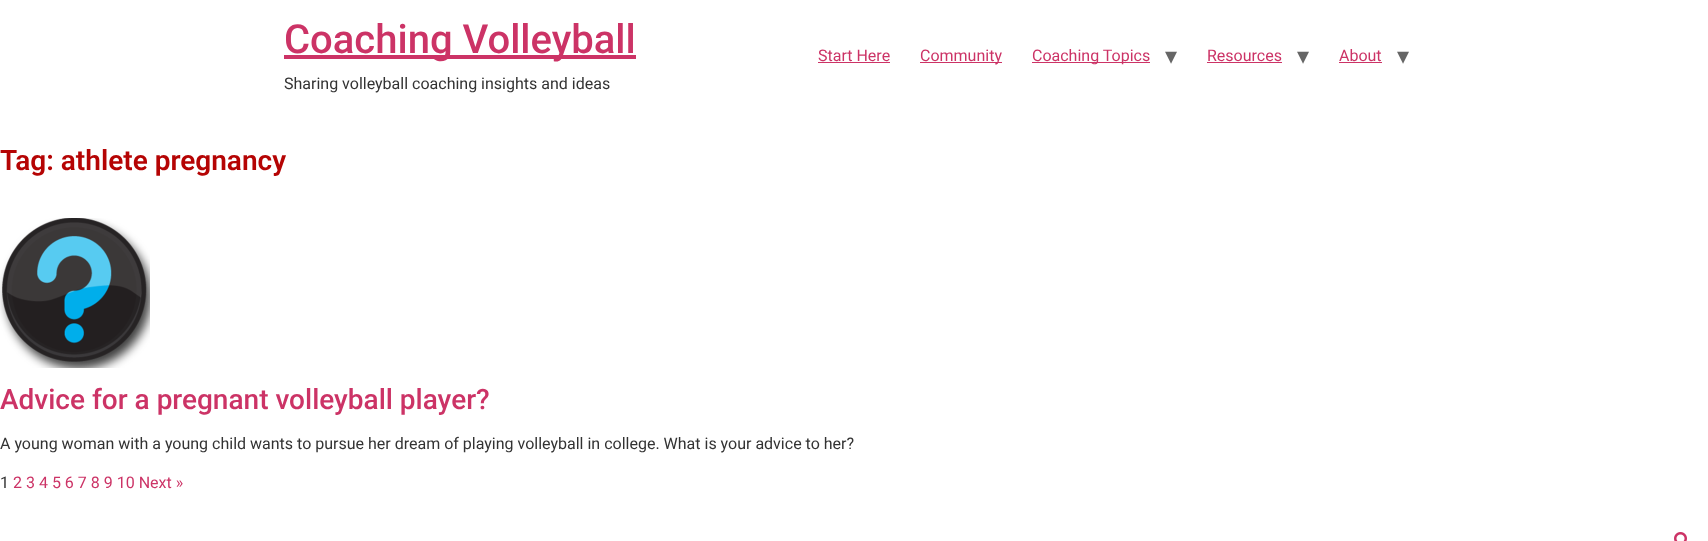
<svg xmlns="http://www.w3.org/2000/svg" width="1708" height="541">
	<rect width="100%" height="100%" fill="#FFFFFF" />
	<rect x="284" y="55" width="352" height="4" fill="#CC3366" />
	<text x="284" y="53" font-family="Roboto" font-size="40" font-weight="500" fill="#CC3366">Coaching Volleyball</text>
	<text x="284" y="89" font-family="Roboto" font-size="16" fill="#333333">Sharing volleyball coaching insights and ideas</text>
	<text x="818" y="61" font-family="Roboto" font-size="16" fill="#CC3366">Start Here</text>
	<rect x="818" y="62" width="72" height="1" fill="#CC3366" />
	<rect x="920" y="62" width="82" height="1" fill="#CC3366" />
	<text x="920" y="61" font-family="Roboto" font-size="16" fill="#CC3366">Community</text>
	<rect x="1032" y="62" width="118" height="1" fill="#CC3366" />
	<text x="1032" y="61" font-family="Roboto" font-size="16" fill="#CC3366">Coaching Topics</text>
	<text x="1165" y="64" font-family="DejaVu Sans" font-size="24" fill="#666666">▾</text>
	<text x="1207" y="61" font-family="Roboto" font-size="16" fill="#CC3366">Resources</text>
	<rect x="1207" y="62" width="75" height="1" fill="#CC3366" />
	<text x="1297" y="64" font-family="DejaVu Sans" font-size="24" fill="#666666">▾</text>
	<text x="1339" y="61" font-family="Roboto" font-size="16" fill="#CC3366">About</text>
	<rect x="1339" y="62" width="43" height="1" fill="#CC3366" />
	<text x="1397" y="64" font-family="DejaVu Sans" font-size="24" fill="#666666">▾</text>
	<text x="0" y="170" font-family="Roboto" font-size="28" font-weight="600" fill="#B50404">Tag: athlete pregnancy</text>
	<image x="0" y="218" width="150" height="150" href="assets/img1.png" />
	<text x="0" y="409" font-family="Roboto" font-size="28" font-weight="500" fill="#CC3366">Advice for a pregnant volleyball player?</text>
	<g font-family="Roboto" font-size="16" fill="#333333">
		<text x="0" y="449">A young woman with a young child wants to pursue her dream of playing volleyball in college. What is your advice to her?</text>
		<text x="0" y="488">1</text>
	</g>
	<text x="13" y="488" font-family="Roboto" font-size="16" fill="#CC3366">2 3 4 5 6 7 8 9 10 Next »</text>
	<image x="1674" y="532" width="13" height="9" href="assets/img2.png" />
</svg>
